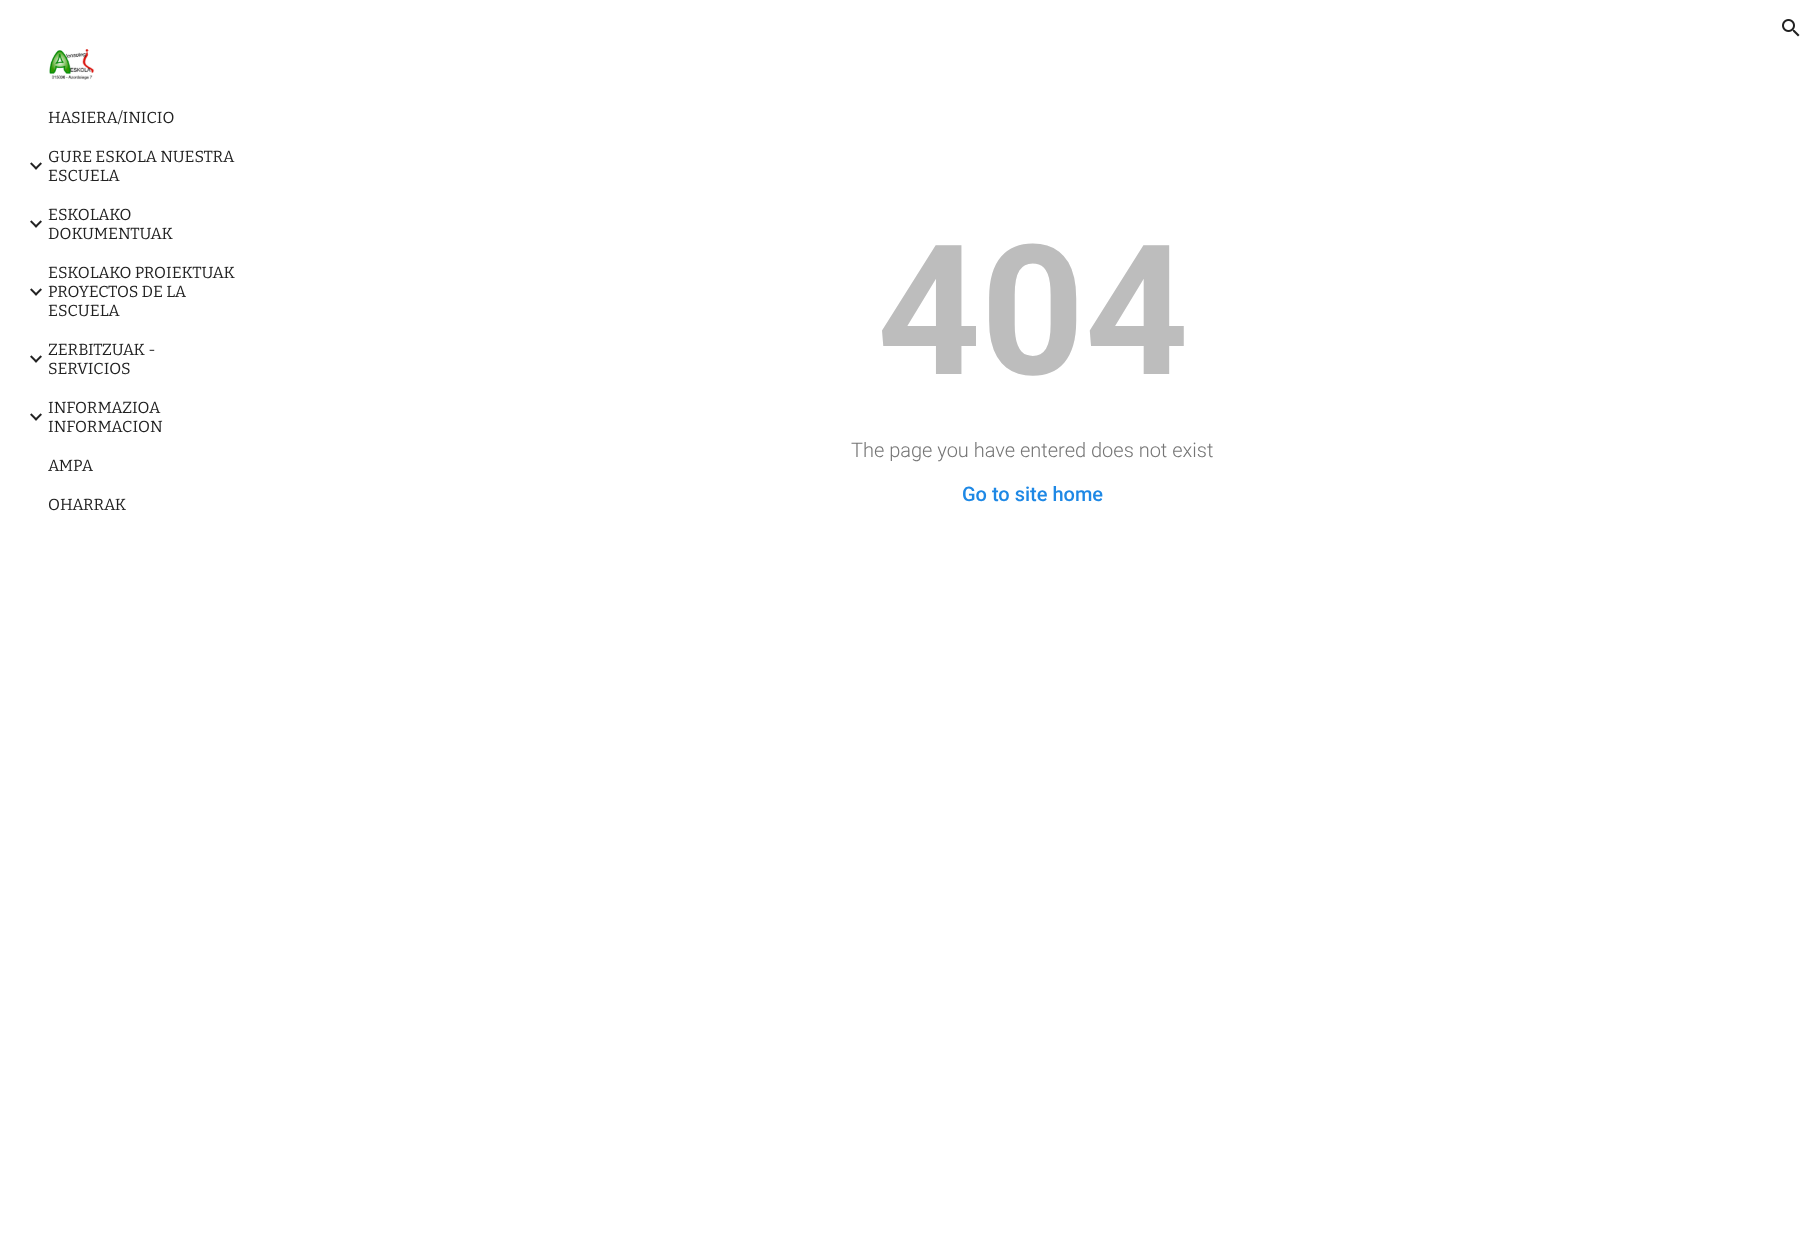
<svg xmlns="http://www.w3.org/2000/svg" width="1815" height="1254">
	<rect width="100%" height="100%" fill="#FFFFFF" />
	<image x="1782" y="19" width="18" height="18" href="assets/img1.png" />
	<image x="49" y="49" width="46" height="31" href="assets/img2.png" />
	<text x="48" y="123" font-family="Bitter" font-size="16" fill="#212121">HASIERA/INICIO</text>
	<image x="30" y="162" width="12" height="8" href="assets/img3.png" />
	<g font-family="Bitter" font-size="16" fill="#212121">
		<text x="48" y="162">GURE ESKOLA NUESTRA</text>
		<text x="48" y="181">ESCUELA</text>
	</g>
	<image x="30" y="220" width="12" height="8" href="assets/img3.png" />
	<g font-family="Bitter" font-size="16" fill="#212121">
		<text x="48" y="220">ESKOLAKO</text>
		<text x="48" y="239">DOKUMENTUAK</text>
	</g>
	<image x="30" y="288" width="12" height="8" href="assets/img3.png" />
	<g font-family="Bitter" font-size="16" fill="#212121">
		<text x="48" y="278">ESKOLAKO PROIEKTUAK</text>
		<text x="48" y="297">PROYECTOS DE LA</text>
		<text x="48" y="316">ESCUELA</text>
	</g>
	<image x="30" y="355" width="12" height="8" href="assets/img3.png" />
	<g font-family="Bitter" font-size="16" fill="#212121">
		<text x="48" y="355">ZERBITZUAK -</text>
		<text x="48" y="374">SERVICIOS</text>
	</g>
	<image x="30" y="413" width="12" height="8" href="assets/img3.png" />
	<g font-family="Bitter" font-size="16" fill="#212121">
		<text x="48" y="413">INFORMAZIOA</text>
		<text x="48" y="432">INFORMACION</text>
		<text x="48" y="471">AMPA</text>
		<text x="48" y="510">OHARRAK</text>
	</g>
	<text x="877" y="374" font-family="Roboto" font-size="181" font-weight="700" fill="#BDBDBD">404</text>
	<text x="851" y="457" font-family="Roboto" font-size="20" font-weight="300" fill="#757575">The page you have entered does not exist</text>
	<text x="962" y="501" font-family="Roboto" font-size="20" font-weight="500" fill="#1E88E5">Go to site home</text>
</svg>
